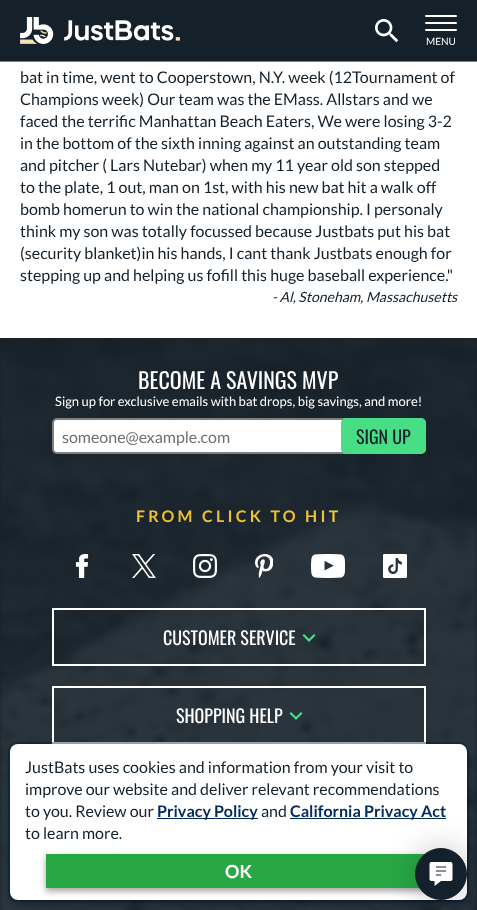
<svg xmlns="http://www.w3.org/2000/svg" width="477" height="910">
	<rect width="100%" height="100%" fill="#14212B" />
	<rect x="0" y="61" width="477" height="1" fill="#808080" />
	<image x="20" y="17" width="160" height="27" href="assets/img1.png" />
	<image x="375" y="19" width="24" height="24" href="assets/img2.png" />
	<rect x="425" y="15" width="32" height="2" rx="1" fill="#FFFFFF" />
	<rect x="425" y="22" width="32" height="2" rx="1" fill="#FFFFFF" />
	<rect x="425" y="29" width="32" height="2" rx="1" fill="#FFFFFF" />
	<text x="426" y="45" font-family="Lato" font-size="10" fill="#FFFFFF">MENU</text>
	<rect x="0" y="338" width="477" height="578" fill="#222222" fill-opacity="0.1" filter="blur(2px)" />
	<rect x="0" y="62" width="477" height="276" fill="#FFFFFF" />
	<g font-family="Lato" font-size="16" fill="#14212B">
		<text x="20" y="83">bat in time, went to Cooperstown, N.Y. week (12Tournament of</text>
		<text x="20" y="105">Champions week) Our team was the EMass. Allstars and we</text>
		<text x="20" y="127">faced the terrific Manhattan Beach Eaters, We were losing 3-2</text>
		<text x="20" y="149">in the bottom of the sixth inning against an outstanding team</text>
		<text x="20" y="171">and pitcher ( Lars Nutebar) when my 11 year old son stepped</text>
		<text x="20" y="193">to the plate, 1 out, man on 1st, with his new bat hit a walk off</text>
		<text x="20" y="215">bomb homerun to win the national championship. I personaly</text>
		<text x="20" y="237">think my son was totally focussed because Justbats put his bat</text>
		<text x="20" y="259">(security blanket)in his hands, I cant thank Justbats enough for</text>
		<text x="20" y="281">stepping up and helping us fofill this huge baseball experience."</text>
	</g>
	<text x="272" y="302" font-family="Lato" font-size="14" font-style="italic" fill="#14212B">- Al, Stoneham, Massachusetts</text>
	<text x="136" y="522" font-family="Lato" font-size="16" font-weight="700" letter-spacing="3.25" fill="#FECB2E">FROM CLICK TO HIT</text>
	<image x="0" y="338" width="477" height="572" href="assets/img3.png" />
	<text x="138" y="389" font-family="Oswald" font-size="22" fill="#FFFFFF">BECOME A SAVINGS MVP</text>
	<text x="55" y="406" font-family="Lato" font-size="13" fill="#FFFFFF">Sign up for exclusive emails with bat drops, big savings, and more!</text>
	<rect x="53" y="419" width="372" height="34" rx="4" fill="#FFFFFF" stroke="#808080" stroke-width="2" />
	<text x="62" y="443" font-family="Lato" font-size="16" fill="#707070">someone@example.com</text>
	<rect x="342" y="419" width="83" height="34" rx="4" fill="#47DE86" stroke="#47DE86" stroke-width="2" />
	<text x="356" y="444" font-family="Oswald" font-size="18" fill="#14212B">SIGN UP</text>
	<image x="75" y="554" width="14" height="24" href="assets/img4.png" />
	<image x="132" y="554" width="24" height="24" href="assets/img5.png" />
	<image x="193" y="554" width="24" height="24" href="assets/img6.png" />
	<image x="255" y="554" width="18" height="24" href="assets/img7.png" />
	<image x="311" y="554" width="34" height="24" href="assets/img8.png" />
	<image x="383" y="554" width="24" height="24" href="assets/img9.png" />
	<rect x="53" y="609" width="372" height="56" fill="none" stroke="#FFFFFF" stroke-width="2" />
	<text x="163" y="645" font-family="Oswald" font-size="18" fill="#FFFFFF">CUSTOMER SERVICE</text>
	<image x="302" y="634" width="14" height="8" href="assets/img10.png" />
	<rect x="53" y="687" width="372" height="56" fill="none" stroke="#FFFFFF" stroke-width="2" />
	<text x="176" y="723" font-family="Oswald" font-size="18" fill="#FFFFFF">SHOPPING HELP</text>
	<image x="289" y="712" width="14" height="8" href="assets/img11.png" />
	<rect x="11" y="749" width="455" height="154" rx="7" fill="#06182C" fill-opacity="0.65" filter="blur(3px)" />
	<rect x="9" y="743" width="459" height="158" rx="9" fill="none" stroke="#06182C" stroke-opacity="0.4" stroke-width="2" />
	<rect x="10" y="744" width="457" height="156" rx="8" fill="#FFFFFF" />
	<path d="M18 745H459C463 745 467 749 467 753C467 748 464 744 459 744H18C13 744 10 748 10 753C10 749 14 745 18 745Z" fill="#FFFFFF" fill-opacity="0.08" />
	<g font-family="Lato" font-size="16" fill="#14212B">
		<text x="25" y="773">JustBats uses cookies and information from your visit to</text>
		<text x="25" y="795">improve our website and deliver relevant recommendations</text>
		<text x="25" y="817">to you. Review our</text>
	</g>
	<rect x="157" y="818" width="101" height="1" fill="#002B5C" />
	<text x="157" y="817" font-family="Lato" font-size="16" font-weight="700" fill="#002B5C">Privacy Policy</text>
	<text x="261" y="817" font-family="Lato" font-size="16" fill="#14212B">and</text>
	<rect x="290" y="818" width="156" height="1" fill="#002B5C" />
	<text x="290" y="817" font-family="Lato" font-size="16" font-weight="700" fill="#002B5C">California Privacy Act</text>
	<text x="25" y="839" font-family="Lato" font-size="16" fill="#14212B">to learn more.</text>
	<rect x="46" y="857" width="385" height="34" fill="#000000" fill-opacity="0.23" filter="blur(3px)" />
	<rect x="46" y="857" width="385" height="34" fill="#000000" fill-opacity="0.16" filter="blur(3px)" />
	<rect x="46" y="854" width="379" height="34" fill="#28A745" />
	<text x="225" y="878" font-family="Lato" font-size="18" font-weight="700" fill="#FFFFFF">OK</text>
	<rect x="414" y="847" width="54" height="54" rx="27" fill="#000000" fill-opacity="0.2" filter="blur(15px)" />
	<circle cx="441" cy="874" r="25.5" fill="#14202B" stroke="#14212B" />
	<image x="429" y="862" width="24" height="24" href="assets/img12.png" />
</svg>
